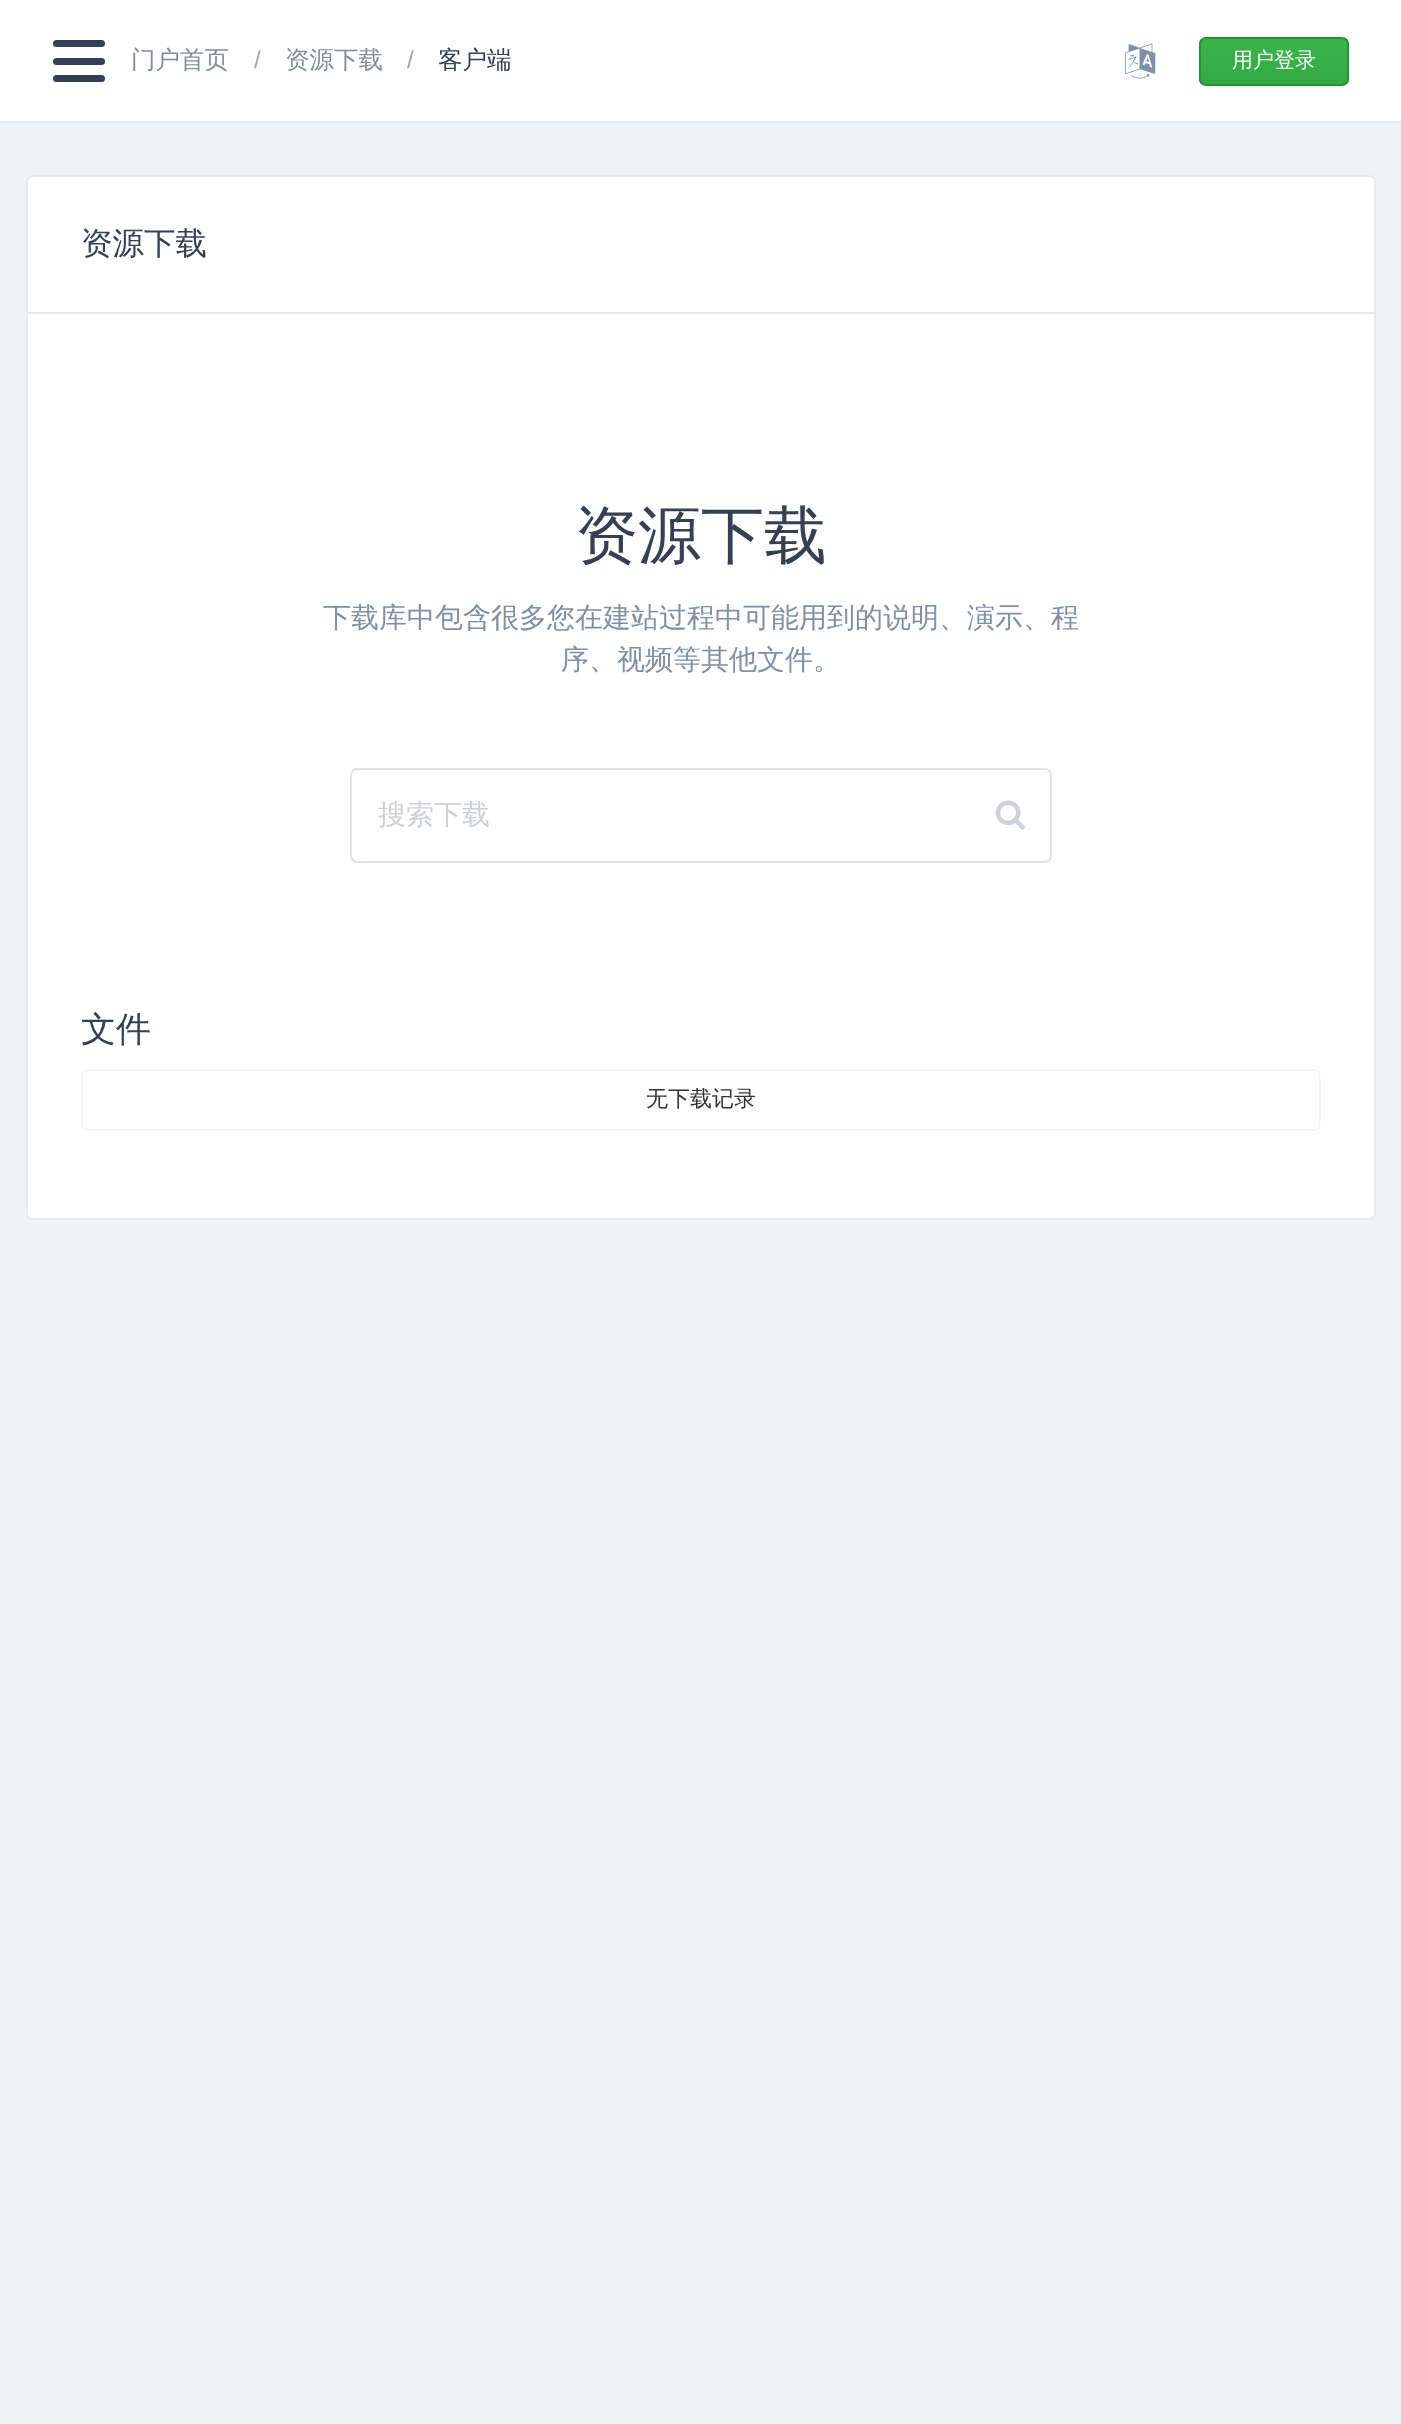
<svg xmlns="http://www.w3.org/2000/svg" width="1401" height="2424">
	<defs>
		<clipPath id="clip1"><rect x="1199" y="37" width="150" height="49" rx="7" /></clipPath>
		<linearGradient id="g1" gradientUnits="userSpaceOnUse" x1="1274" y1="38" x2="1274" y2="84"><stop offset="0" stop-color="#39B54A" /><stop offset="1" stop-color="#34AA44" /></linearGradient>
	</defs>
	<rect width="100%" height="100%" fill="#EFF3F6" />
	<rect x="0" y="0" width="1401" height="121" fill="#FFFFFF" />
	<rect x="0" y="121" width="1401" height="2" fill="#E6EAEE" />
	<rect x="53" y="40" width="52" height="7" rx="3.5" fill="#354052" />
	<rect x="53" y="58" width="52" height="7" rx="3.5" fill="#354052" />
	<rect x="53" y="75" width="52" height="7" rx="3.5" fill="#354052" />
	<text x="131" y="68" font-family="WenQuanYi Zen Hei" font-size="24.5" font-weight="500" fill="#848C98">门户首页</text>
	<text x="254" y="68" font-family="Liberation Sans" font-size="24.5" fill="#A1A7AF">/</text>
	<text x="285" y="68" font-family="WenQuanYi Zen Hei" font-size="24.5" font-weight="500" fill="#848C98">资源下载</text>
	<text x="407" y="68" font-family="Liberation Sans" font-size="24.5" fill="#A1A7AF">/</text>
	<text x="438" y="68" font-family="WenQuanYi Zen Hei" font-size="24.5" font-weight="500" fill="#354052">客户端</text>
	<image x="1125" y="43" width="31" height="36" href="assets/img1.png" />
	<g clip-path="url(#clip1)">
		<rect x="1199" y="39" width="150" height="45" fill="url(#g1)" />
	</g>
	<rect x="1200" y="38" width="148" height="47" rx="6" fill="none" stroke="#249533" stroke-width="2" />
	<text x="1232" y="67" font-family="WenQuanYi Zen Hei" font-size="21" font-weight="500" fill="#FFFFFF">用户登录</text>
	<rect x="27" y="176" width="1348" height="1043" rx="6" fill="#FFFFFF" stroke="#E6EAEE" stroke-width="2" />
	<rect x="28" y="312" width="1346" height="2" fill="#E6EAEE" />
	<text x="81" y="254" font-family="WenQuanYi Zen Hei" font-size="31.5" font-weight="500" fill="#354052">资源下载</text>
	<text x="575" y="557" font-family="WenQuanYi Zen Hei" font-size="63" font-weight="500" fill="#354052">资源下载</text>
	<g font-family="WenQuanYi Zen Hei" font-size="28" font-weight="500" fill="#7F8FA4">
		<text x="323" y="627">下载库中包含很多您在建站过程中可能用到的说明、演示、程</text>
		<text x="561" y="669">序、视频等其他文件。</text>
	</g>
	<rect x="351" y="769" width="700" height="93" rx="6" fill="none" stroke="#DFE3E9" stroke-width="2" />
	<text x="378" y="824" font-family="WenQuanYi Zen Hei" font-size="28" font-weight="500" fill="#CDD0D4">搜索下载</text>
	<image x="995" y="800" width="30" height="30" href="assets/img2.png" />
	<text x="81" y="1041" font-family="WenQuanYi Zen Hei" font-size="35" font-weight="500" fill="#354052">文件</text>
	<rect x="82" y="1070" width="1238" height="60" rx="6" fill="none" stroke="#F5F5F5" stroke-width="2" />
	<text x="646" y="1106" font-family="WenQuanYi Zen Hei" font-size="22" font-weight="500" fill="#333333">无下载记录</text>
</svg>
